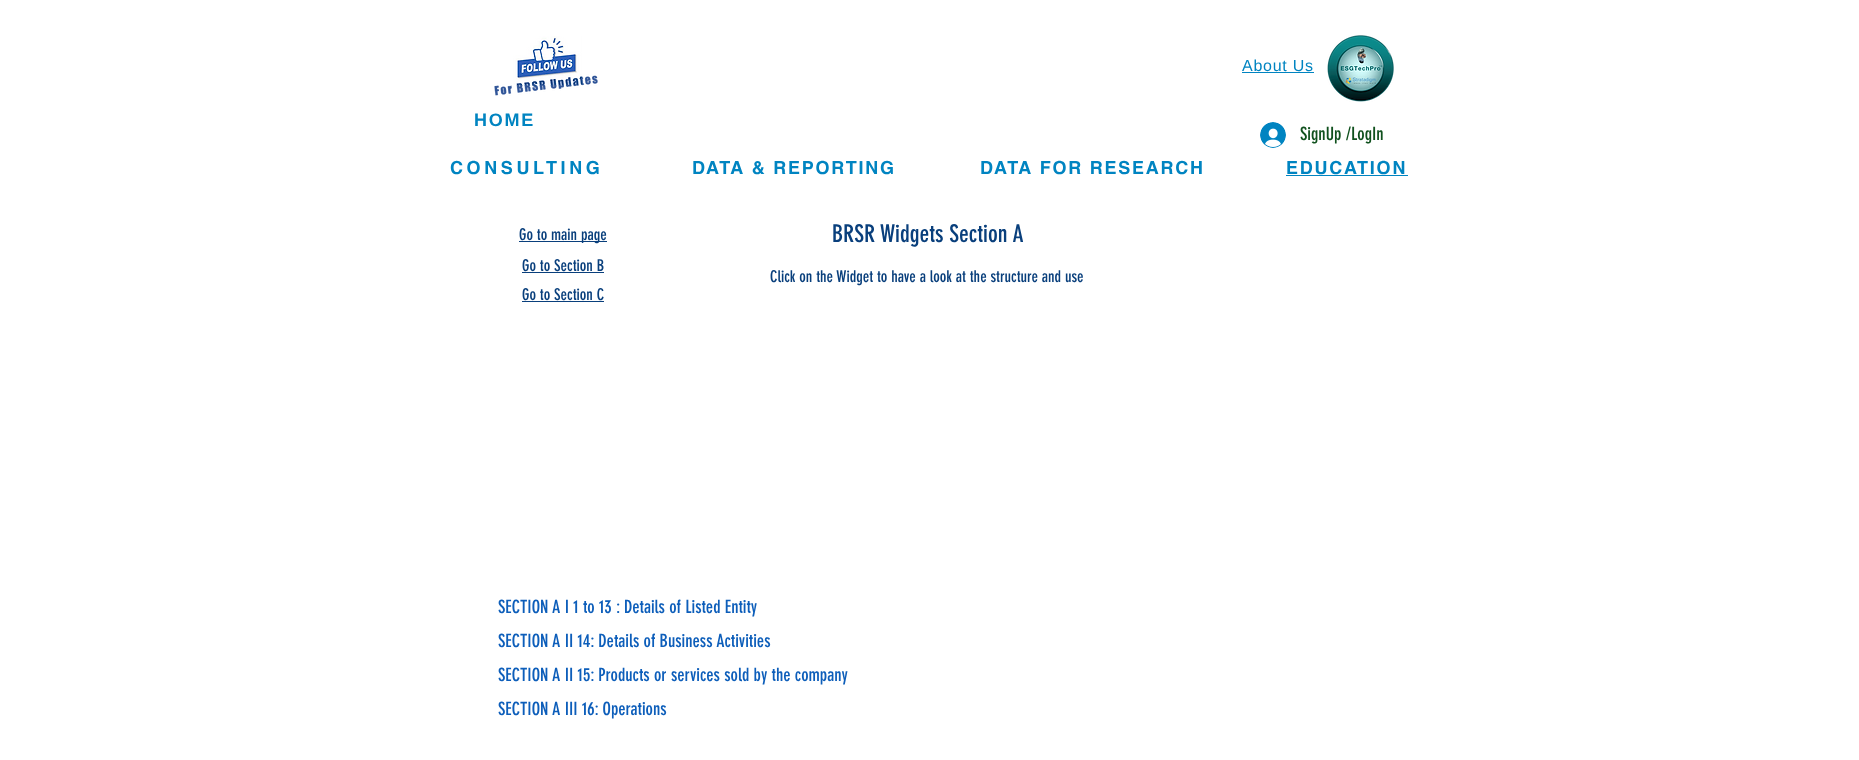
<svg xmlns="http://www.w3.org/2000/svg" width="1859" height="760">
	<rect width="100%" height="100%" fill="#FFFFFF" />
	<image x="494" y="36" width="104" height="60" href="assets/img1.png" />
	<image x="1327" y="35" width="67" height="67" href="assets/img2.png" />
	<text x="1242" y="71" font-family="Liberation Sans" font-size="16" letter-spacing="0.75" fill="#0084C1">About Us</text>
	<rect x="1242" y="72" width="72" height="1" fill="#0084C1" />
	<text x="474" y="126" font-family="Liberation Sans" font-size="18" font-weight="700" letter-spacing="1.75" fill="#0084C1">HOME</text>
	<image x="1260" y="122" width="26" height="26" href="assets/img3.png" />
	<text x="1300" y="140" font-family="'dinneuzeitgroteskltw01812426'" font-size="18" fill="#10511E">SignUp /LogIn</text>
	<text x="450" y="174" font-family="helvetica" font-size="18" font-weight="700" letter-spacing="3.6" fill="#0084C1">CONSULTING</text>
	<g font-family="helvetica" font-size="18" font-weight="700" letter-spacing="1.75" fill="#0084C1">
		<text x="692" y="174">DATA &amp; REPORTING</text>
		<text x="980" y="174">DATA FOR RESEARCH</text>
		<text x="1286" y="174">EDUCATION</text>
	</g>
	<rect x="1286" y="175" width="122" height="1" fill="#0084C1" />
	<rect x="519" y="241" width="88" height="1" fill="#093F7C" />
	<text x="519" y="240" font-family="'dinneuzeitgroteskltw01812426'" font-size="16" fill="#093F7C">Go to main page</text>
	<text x="832" y="242" font-family="'dinneuzeitgroteskltw01812426'" font-size="24" fill="#093F7C">BRSR Widgets Section A</text>
	<text x="522" y="271" font-family="'dinneuzeitgroteskltw01812426'" font-size="16" fill="#093F7C">Go to Section B</text>
	<rect x="522" y="272" width="82" height="1" fill="#093F7C" />
	<g font-family="'dinneuzeitgroteskltw01812426'" font-size="16" fill="#093F7C">
		<text x="770" y="282">Click on the Widget to have a look at the structure and use</text>
		<text x="522" y="300">Go to Section C</text>
	</g>
	<rect x="522" y="301" width="82" height="1" fill="#093F7C" />
	<g font-family="'dinneuzeitgroteskltw01812426'" font-size="18" fill="#0D5EBA">
		<text x="498" y="613">SECTION A I 1 to 13 : Details of Listed Entity</text>
		<text x="498" y="647">SECTION A II 14: Details of Business Activities</text>
		<text x="498" y="681">SECTION A II 15: Products or services sold by the company</text>
		<text x="498" y="715">SECTION A III 16: Operations</text>
	</g>
</svg>
